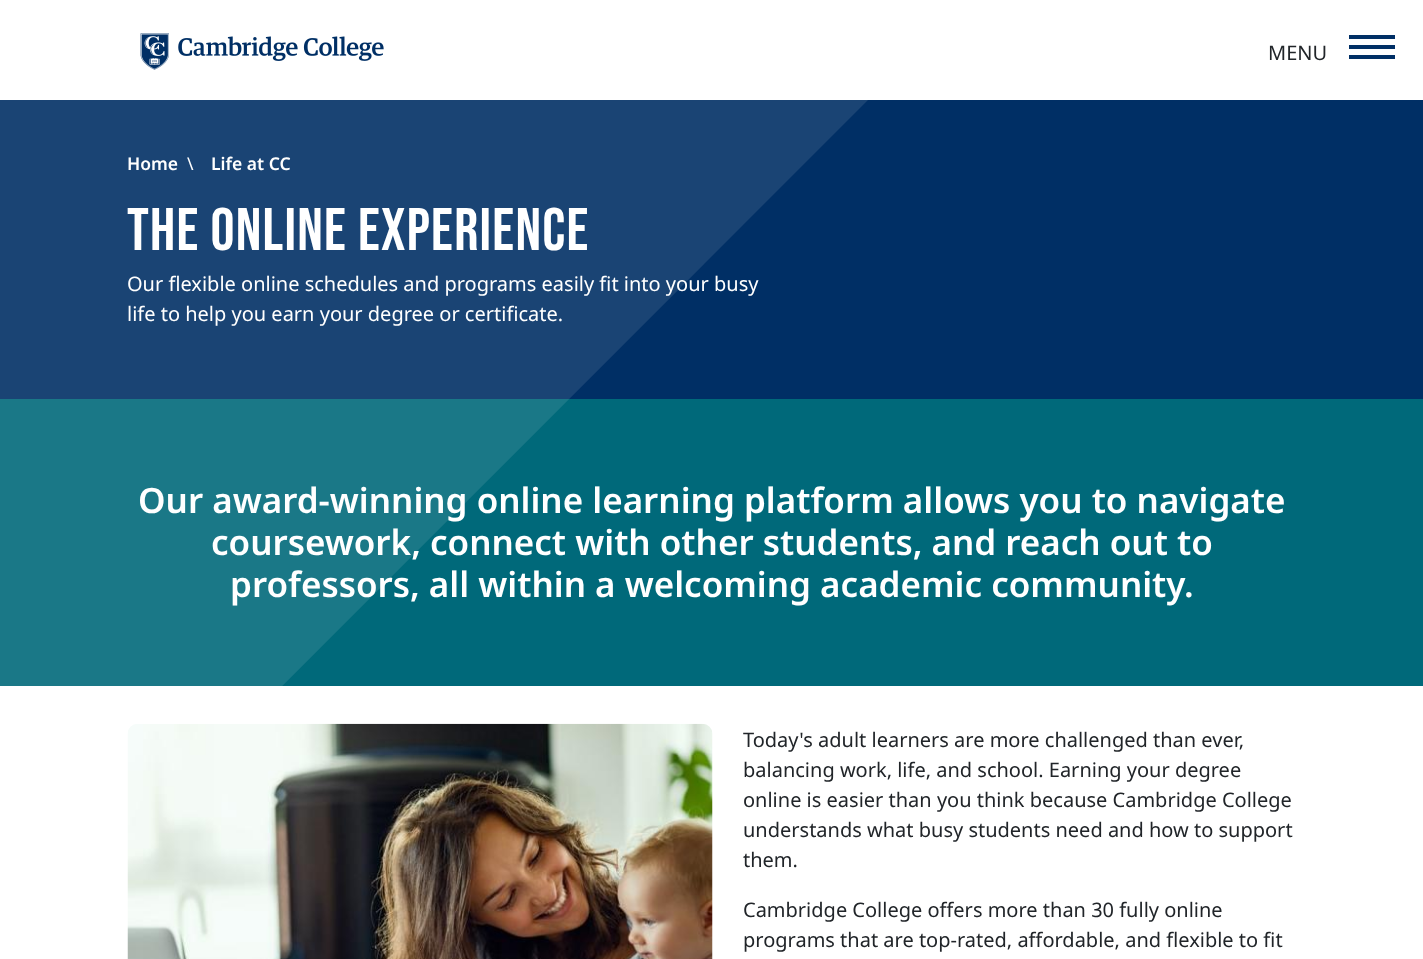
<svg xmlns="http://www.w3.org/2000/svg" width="1423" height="959">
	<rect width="100%" height="100%" fill="#FFFFFF" />
	<rect x="0" y="100" width="1423" height="299" fill="#002F65" />
	<rect x="0" y="399" width="1423" height="287" fill="#00697A" />
	<path d="M-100 0H968L-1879 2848H-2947Z" fill="#FFFFFF" fill-opacity="0.1" />
	<image x="140" y="33" width="244" height="37" href="assets/img1.png" />
	<text x="1268" y="60" font-family="Noto Sans" font-size="20" fill="#212529">MENU</text>
	<rect x="1349" y="35" width="46" height="4" fill="#002F65" />
	<rect x="1349" y="45" width="46" height="4" fill="#002F65" />
	<rect x="1349" y="55" width="46" height="4" fill="#002F65" />
	<text x="127" y="170" font-family="Noto Sans" font-size="17.5" font-weight="600" fill="#FFFFFF">Home</text>
	<text x="187" y="170" font-family="Noto Sans" font-size="17.5" fill="#FFFFFF">\</text>
	<text x="211" y="170" font-family="Noto Sans" font-size="17.5" font-weight="600" fill="#FFFFFF">Life at CC</text>
	<text x="127" y="250" font-family="Bebas Neue" font-size="60" letter-spacing="1.25" fill="#FFFFFF">The Online Experience</text>
	<g font-family="Noto Sans" font-size="20" fill="#FFFFFF">
		<text x="127" y="291">Our flexible online schedules and programs easily fit into your busy</text>
		<text x="127" y="321">life to help you earn your degree or certificate.</text>
	</g>
	<g font-family="Noto Sans" font-size="35" font-weight="600" fill="#FFFFFF">
		<text x="138" y="513">Our award-winning online learning platform allows you to navigate</text>
		<text x="211" y="555">coursework, connect with other students, and reach out to</text>
		<text x="230" y="597">professors, all within a welcoming academic community.</text>
	</g>
	<image x="127" y="723" width="586" height="236" href="assets/img2.png" />
	<g font-family="Noto Sans" font-size="20" fill="#212529">
		<text x="743" y="747">Today's adult learners are more challenged than ever,</text>
		<text x="743" y="777">balancing work, life, and school. Earning your degree</text>
		<text x="743" y="807">online is easier than you think because Cambridge College</text>
		<text x="743" y="837">understands what busy students need and how to support</text>
		<text x="743" y="867">them.</text>
		<text x="743" y="917">Cambridge College offers more than 30 fully online</text>
		<text x="743" y="947">programs that are top-rated, affordable, and flexible to fit</text>
	</g>
</svg>
